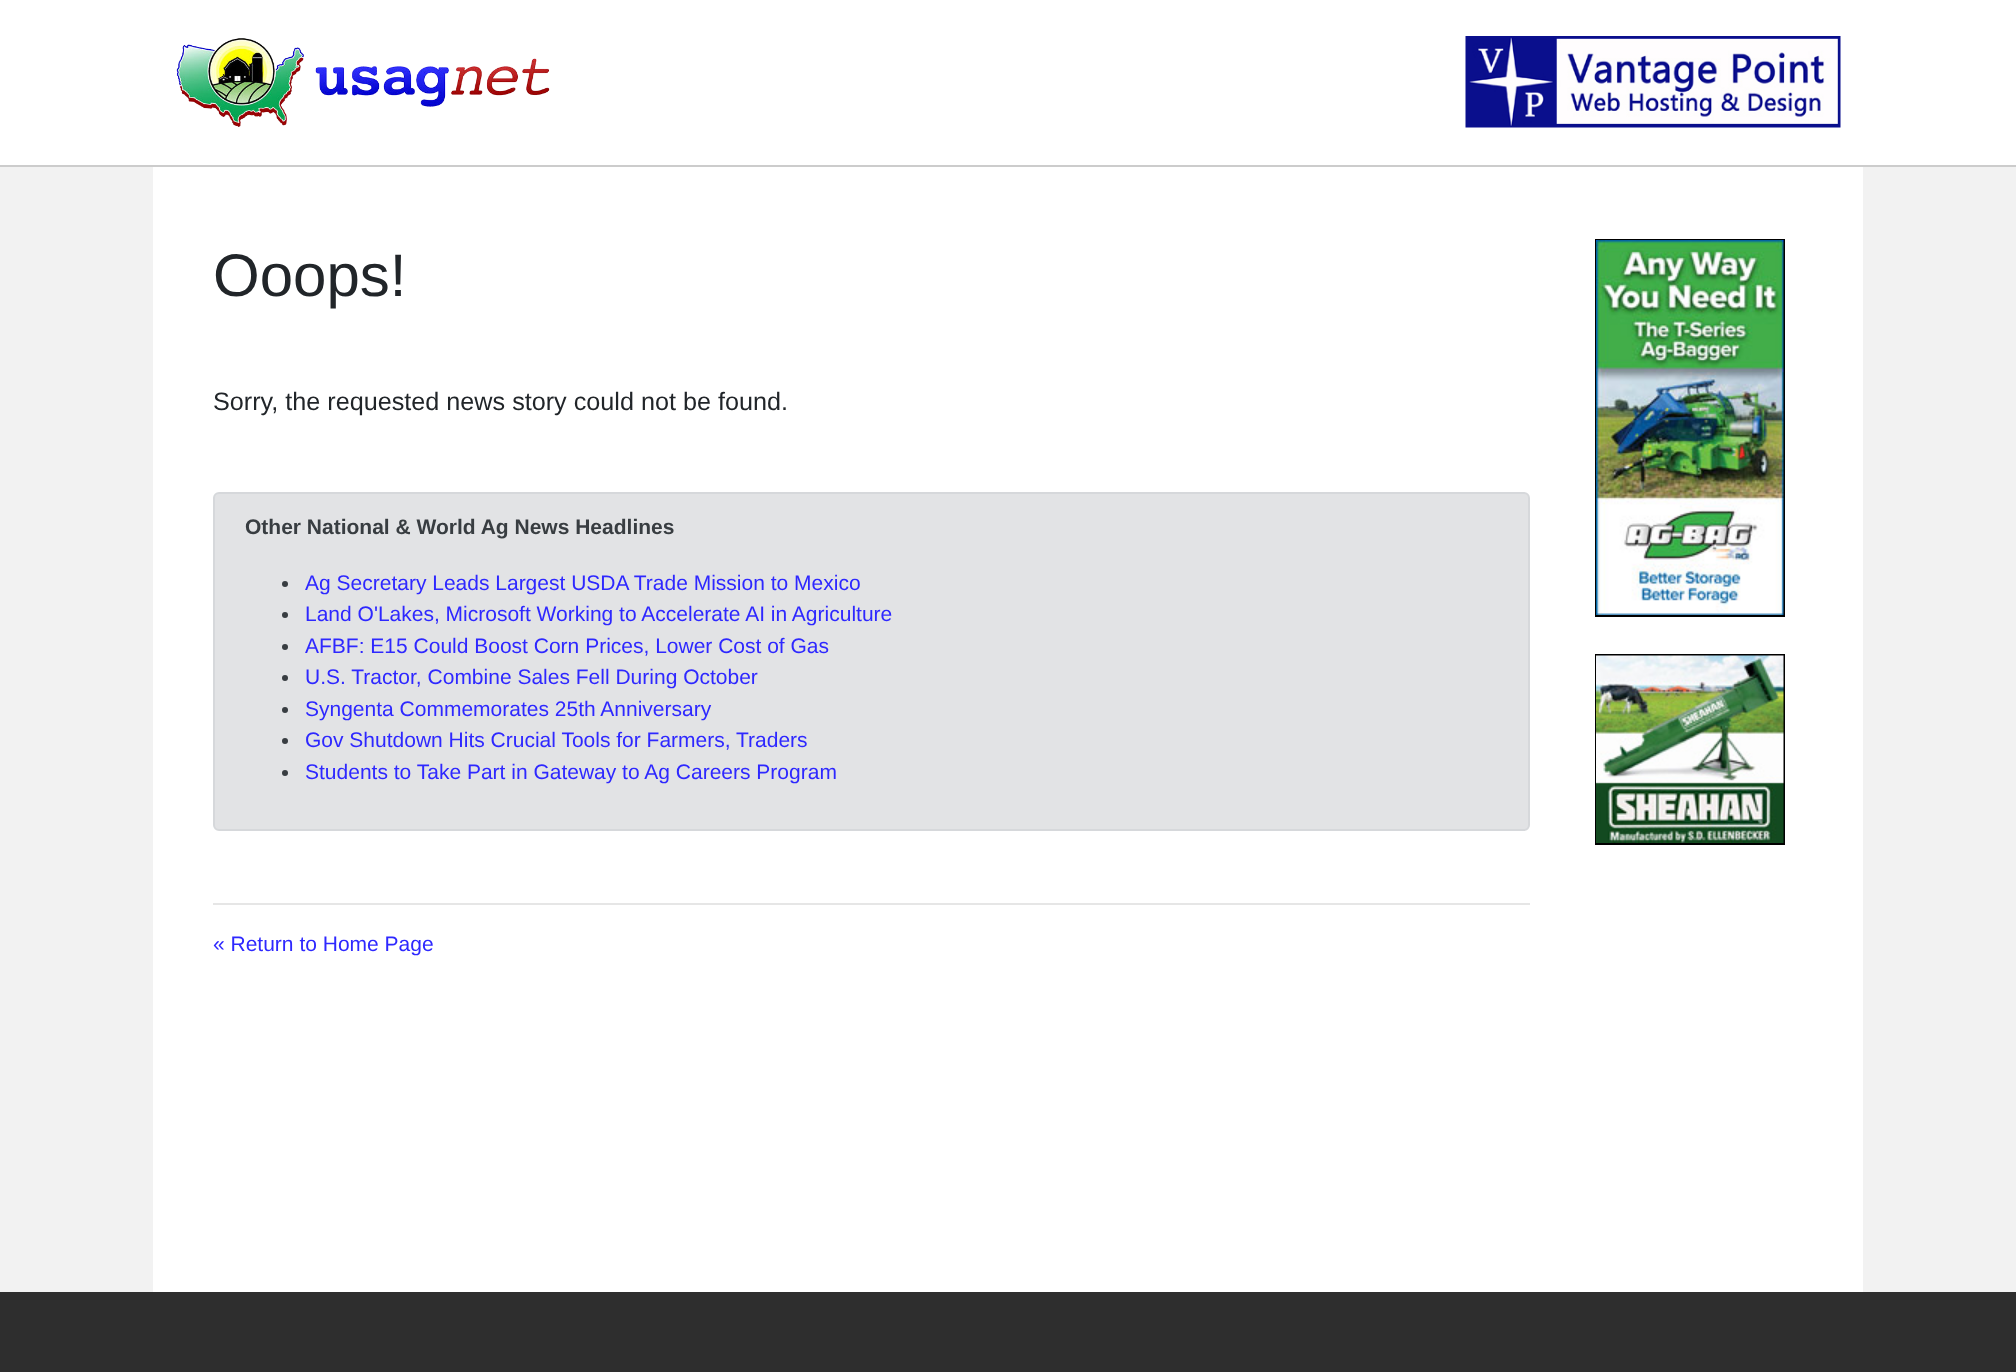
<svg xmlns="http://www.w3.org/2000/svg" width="2016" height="1372">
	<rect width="100%" height="100%" fill="#FFFFFF" />
	<rect x="0" y="165" width="2016" height="2" fill="#CCCCCC" />
	<image x="176" y="38" width="374" height="89" href="assets/img1.png" />
	<image x="1465" y="36" width="376" height="92" href="assets/img2.png" />
	<rect x="0" y="167" width="2016" height="1125" fill="#F2F2F2" />
	<rect x="153" y="167" width="1710" height="1125" fill="#FFFFFF" />
	<text x="213" y="296" font-family="Liberation Sans" font-size="60" fill="#212529">Ooops!</text>
	<text x="213" y="410" font-family="Liberation Sans" font-size="25.2" fill="#212529">Sorry, the requested news story could not be found.</text>
	<rect x="214" y="493" width="1315" height="337" rx="5" fill="#E2E3E5" stroke="#D6D8DB" stroke-width="2" />
	<text x="245" y="534" font-family="Liberation Sans" font-size="21" font-weight="700" fill="#383D41">Other National &amp; World Ag News Headlines</text>
	<circle cx="285" cy="584" r="3" fill="#383D41" />
	<text x="305" y="590" font-family="Liberation Sans" font-size="21" fill="#2E28FF">Ag Secretary Leads Largest USDA Trade Mission to Mexico</text>
	<circle cx="285" cy="615" r="3" fill="#383D41" />
	<text x="305" y="621" font-family="Liberation Sans" font-size="21" fill="#2E28FF">Land O'Lakes, Microsoft Working to Accelerate AI in Agriculture</text>
	<circle cx="285" cy="647" r="3" fill="#383D41" />
	<text x="305" y="653" font-family="Liberation Sans" font-size="21" fill="#2E28FF">AFBF: E15 Could Boost Corn Prices, Lower Cost of Gas</text>
	<circle cx="285" cy="678" r="3" fill="#383D41" />
	<text x="305" y="684" font-family="Liberation Sans" font-size="21" fill="#2E28FF">U.S. Tractor, Combine Sales Fell During October</text>
	<circle cx="285" cy="710" r="3" fill="#383D41" />
	<text x="305" y="716" font-family="Liberation Sans" font-size="21" fill="#2E28FF">Syngenta Commemorates 25th Anniversary</text>
	<circle cx="285" cy="741" r="3" fill="#383D41" />
	<text x="305" y="747" font-family="Liberation Sans" font-size="21" fill="#2E28FF">Gov Shutdown Hits Crucial Tools for Farmers, Traders</text>
	<circle cx="285" cy="773" r="3" fill="#383D41" />
	<text x="305" y="779" font-family="Liberation Sans" font-size="21" fill="#2E28FF">Students to Take Part in Gateway to Ag Careers Program</text>
	<rect x="213" y="903" width="1317" height="2" fill="#E6E6E6" />
	<text x="213" y="951" font-family="Liberation Sans" font-size="21" fill="#2E28FF">« Return to Home Page</text>
	<rect x="1596" y="240" width="188" height="376" fill="none" stroke="#000000" stroke-width="2" />
	<image x="1596" y="240" width="188" height="375" href="assets/img3.png" />
	<rect x="1596" y="655" width="188" height="189" fill="none" stroke="#000000" stroke-width="2" />
	<image x="1596" y="655" width="188" height="188" href="assets/img4.png" />
	<rect x="0" y="1292" width="2016" height="80" fill="#2E2E2E" />
</svg>
